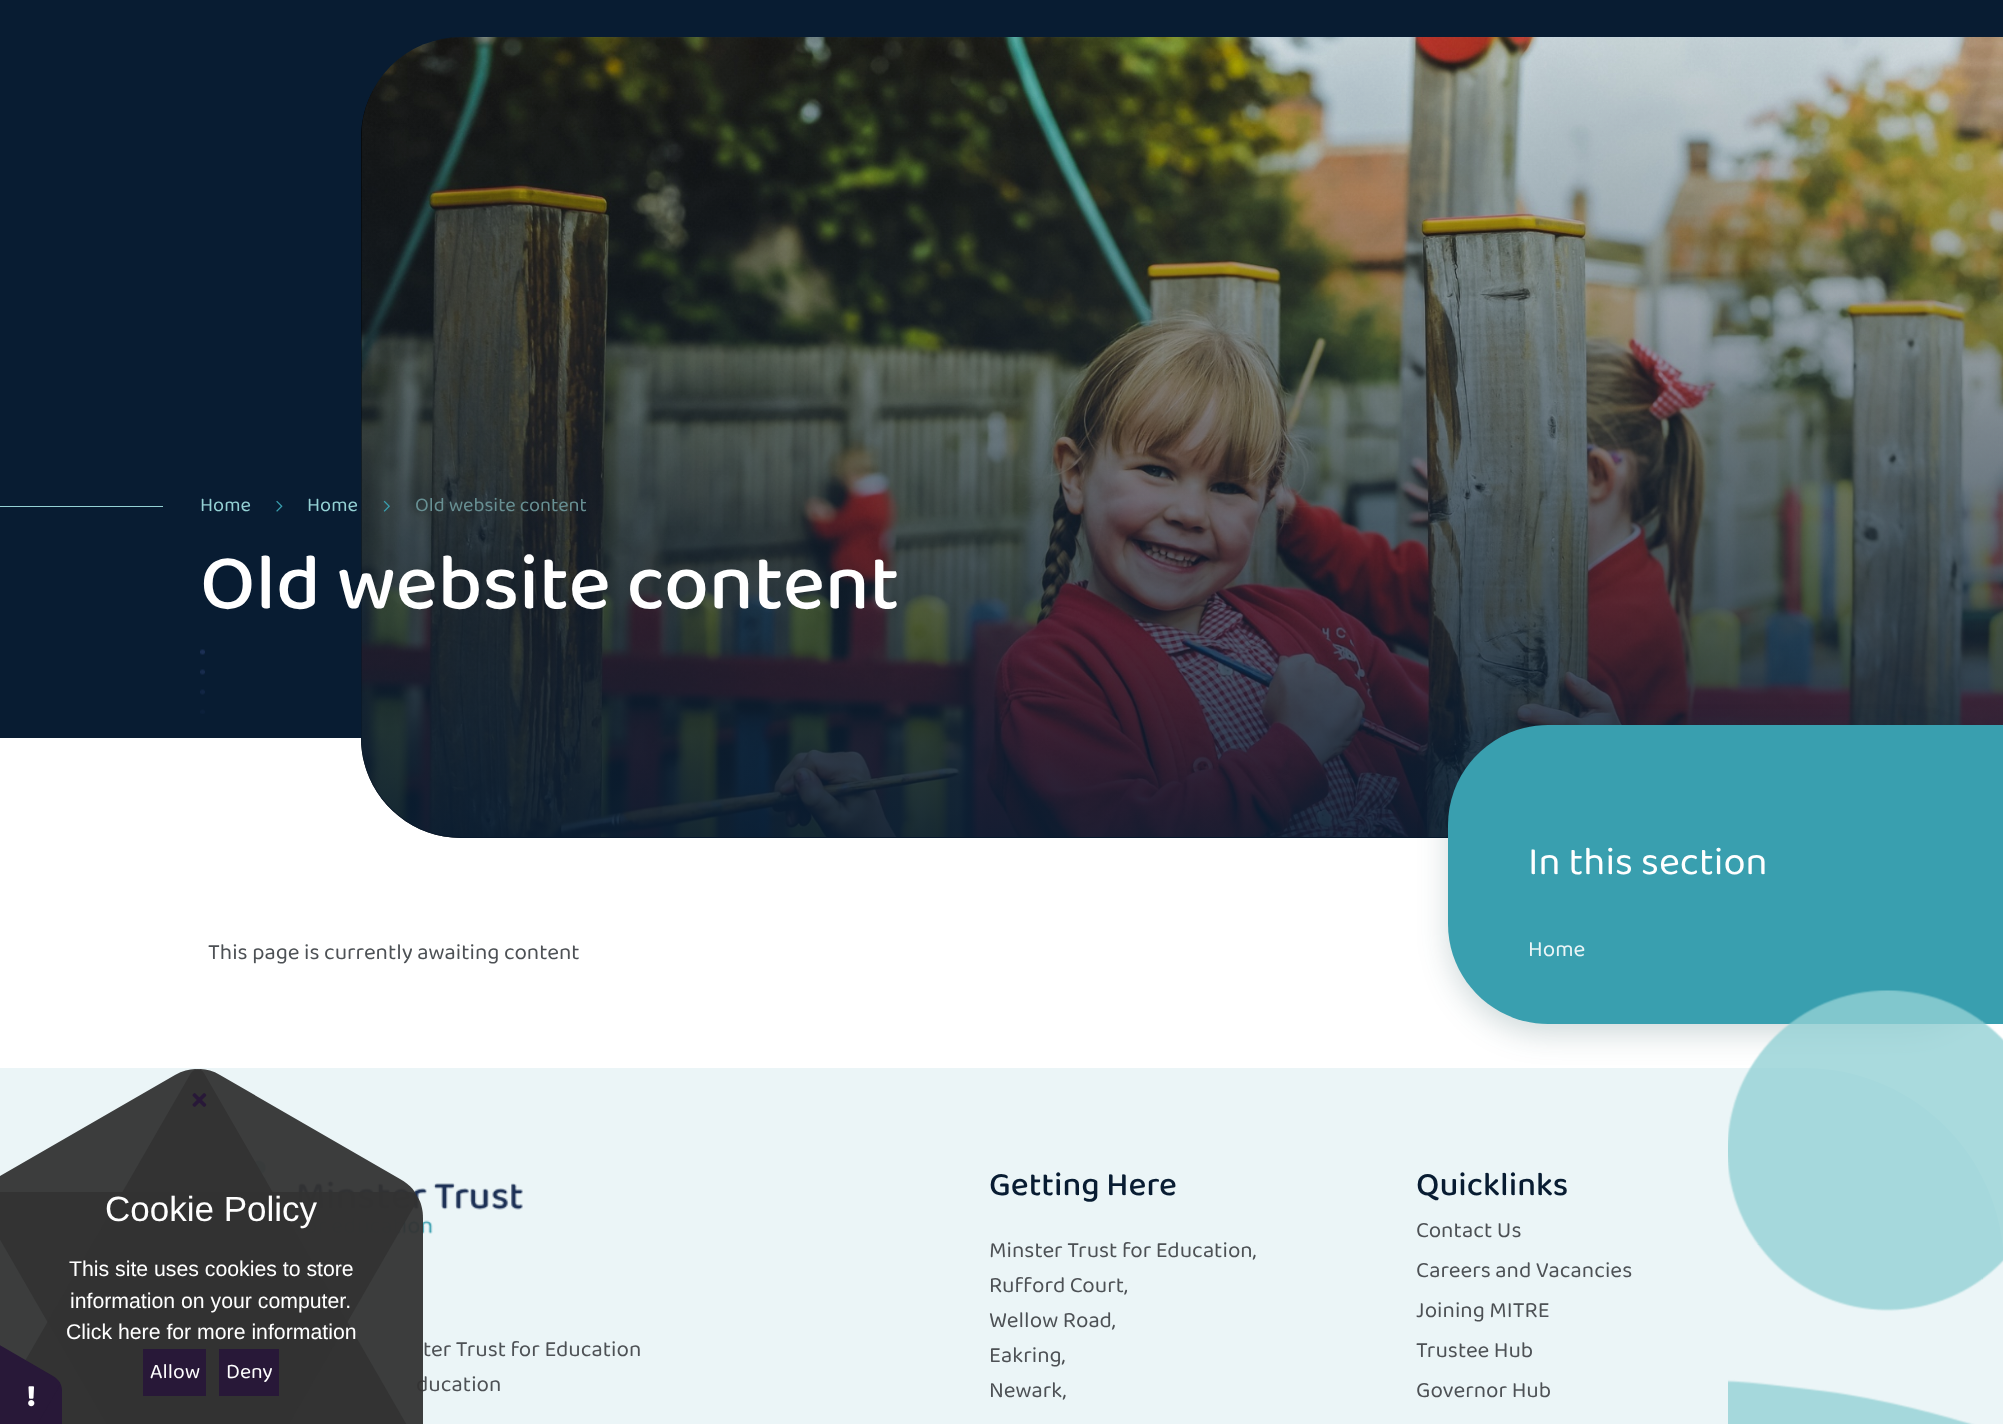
<svg xmlns="http://www.w3.org/2000/svg" width="2003" height="1424">
	<defs>
		<linearGradient id="g1" gradientUnits="userSpaceOnUse" x1="1183" y1="838" x2="1183" y2="38"><stop offset="0" stop-color="#081C32" stop-opacity="0.9" /><stop offset="1" stop-color="#081C32" stop-opacity="0" /></linearGradient>
	</defs>
	<rect width="100%" height="100%" fill="#FFFFFF" />
	<rect x="0" y="0" width="2003" height="38" fill="#081C32" />
	<rect x="0" y="38" width="460" height="700" fill="#081C32" />
	<path d="M461 38H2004V838H461C406 838 361 793 361 738V138C361 83 406 38 461 38Z" fill="#000000" />
	<image x="361" y="37" width="1642" height="800" href="assets/img1.png" />
	<path d="M461 38H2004V838H461C406 838 361 793 361 738V138C361 83 406 38 461 38Z" fill="url(#g1)" />
	<rect x="0" y="506" width="163" height="1" fill="#94D1D4" />
	<text x="200" y="511" font-family="'Baloo 2'" font-size="20" fill="#94D1D4">Home</text>
	<image x="276" y="500" width="7" height="12" href="assets/img2.png" />
	<text x="307" y="511" font-family="'Baloo 2'" font-size="20" fill="#94D1D4">Home</text>
	<image x="383" y="500" width="7" height="12" href="assets/img3.png" />
	<text x="415" y="511" font-family="'Baloo 2'" font-size="20" fill="#689093">Old website content</text>
	<text x="200" y="608" font-family="'Baloo 2'" font-size="80" font-weight="500" fill="#FFFFFF">Old website content</text>
	<image x="200" y="649" width="5" height="65" href="assets/img4.png" />
	<text x="208" y="959" font-family="'Baloo 2'" font-size="22.5" fill="#4D5155">This page is currently awaiting content</text>
	<path d="M0 1068H1804C1914.5 1068 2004 1157.5 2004 1268V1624H0Z" fill="#EBF5F7" />
	<rect x="1448" y="735" width="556" height="299" rx="100" fill="#16464D" fill-opacity="0.2" filter="blur(15px)" />
	<path d="M1548 725H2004V1024H1548C1493 1024 1448 979 1448 924V825C1448 770 1493 725 1548 725Z" fill="#399FAF" />
	<text x="1528" y="874" font-family="'Baloo 2'" font-size="40" fill="#FFFFFF">In this section</text>
	<text x="1528" y="956" font-family="'Baloo 2'" font-size="22.5" fill="#EBF5F7">Home</text>
	<image x="1728" y="990" width="275" height="434" href="assets/img5.png" />
	<image x="202" y="1160" width="321" height="76" href="assets/img6.png" />
	<g font-family="'Baloo 2'" font-size="22.5" fill="#4D5155">
		<text x="423" y="1356">ter Trust for Education</text>
		<text x="416" y="1391">ducation</text>
	</g>
	<text x="989" y="1195" font-family="'Baloo 2'" font-size="33.75" font-weight="500" fill="#081C32">Getting Here</text>
	<g font-family="'Baloo 2'" font-size="22.5" fill="#4D5155">
		<text x="989" y="1257">Minster Trust for Education,</text>
		<text x="989" y="1292">Rufford Court,</text>
		<text x="989" y="1327">Wellow Road,</text>
		<text x="989" y="1362">Eakring,</text>
		<text x="989" y="1397">Newark,</text>
	</g>
	<text x="1416" y="1195" font-family="'Baloo 2'" font-size="33.75" font-weight="500" fill="#081C32">Quicklinks</text>
	<g font-family="'Baloo 2'" font-size="22.5" fill="#4D5155">
		<text x="1416" y="1237">Contact Us</text>
		<text x="1416" y="1277">Careers and Vacancies</text>
		<text x="1416" y="1317">Joining MITRE</text>
		<text x="1416" y="1357">Trustee Hub</text>
		<text x="1416" y="1397">Governor Hub</text>
	</g>
	<path d="M423 1218V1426C423 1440 417 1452 410 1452H-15C-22 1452-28 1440-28 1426V1218C-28 1204-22 1192-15 1192H410C417 1192 423 1204 423 1218Z" fill="#333333" fill-opacity="0.95" />
	<path d="M400 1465L220 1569C208 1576 195 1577 191 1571L-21 1203C-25 1197-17 1186-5 1179L175 1075C188 1068 201 1067 204 1073L416 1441C420 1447 413 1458 400 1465Z" fill="#333333" fill-opacity="0.95" />
	<path d="M220 1075L400 1179C413 1186 420 1197 416 1203L204 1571C201 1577 188 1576 175 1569L-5 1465C-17 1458-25 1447-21 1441L191 1073C195 1067 208 1068 220 1075Z" fill="#333333" fill-opacity="0.95" />
	<path d="M62 1391V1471C62 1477 60 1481 57 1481H-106C-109 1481-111 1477-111 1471V1391C-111 1386-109 1381-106 1381H57C60 1381 62 1386 62 1391Z" fill="#281838" />
	<path d="M-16 1336L53 1376C58 1379 61 1383 60 1385L-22 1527C-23 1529-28 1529-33 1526L-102 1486C-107 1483-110 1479-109 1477L-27 1335C-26 1333-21 1333-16 1336Z" fill="#281838" />
	<image x="28" y="1386" width="7" height="21" href="assets/img7.png" />
	<image x="192" y="1093" width="15" height="14" href="assets/img8.png" />
	<text x="105" y="1221" font-family="Liberation Sans" font-size="35" fill="#FFFFFF">Cookie Policy</text>
	<g font-family="Liberation Sans" font-size="21.25" fill="#FFFFFF">
		<text x="69" y="1276">This site uses cookies to store</text>
		<text x="70" y="1308">information on your computer.</text>
		<text x="66" y="1339">Click here for more information</text>
	</g>
	<rect x="143" y="1349" width="63" height="47" fill="#281838" />
	<text x="150" y="1378" font-family="'Baloo 2'" font-size="21.25" fill="#FFFFFF">Allow</text>
	<rect x="219" y="1349" width="60" height="47" fill="#281838" />
	<text x="226" y="1378" font-family="'Baloo 2'" font-size="21.25" fill="#FFFFFF">Deny</text>
</svg>
